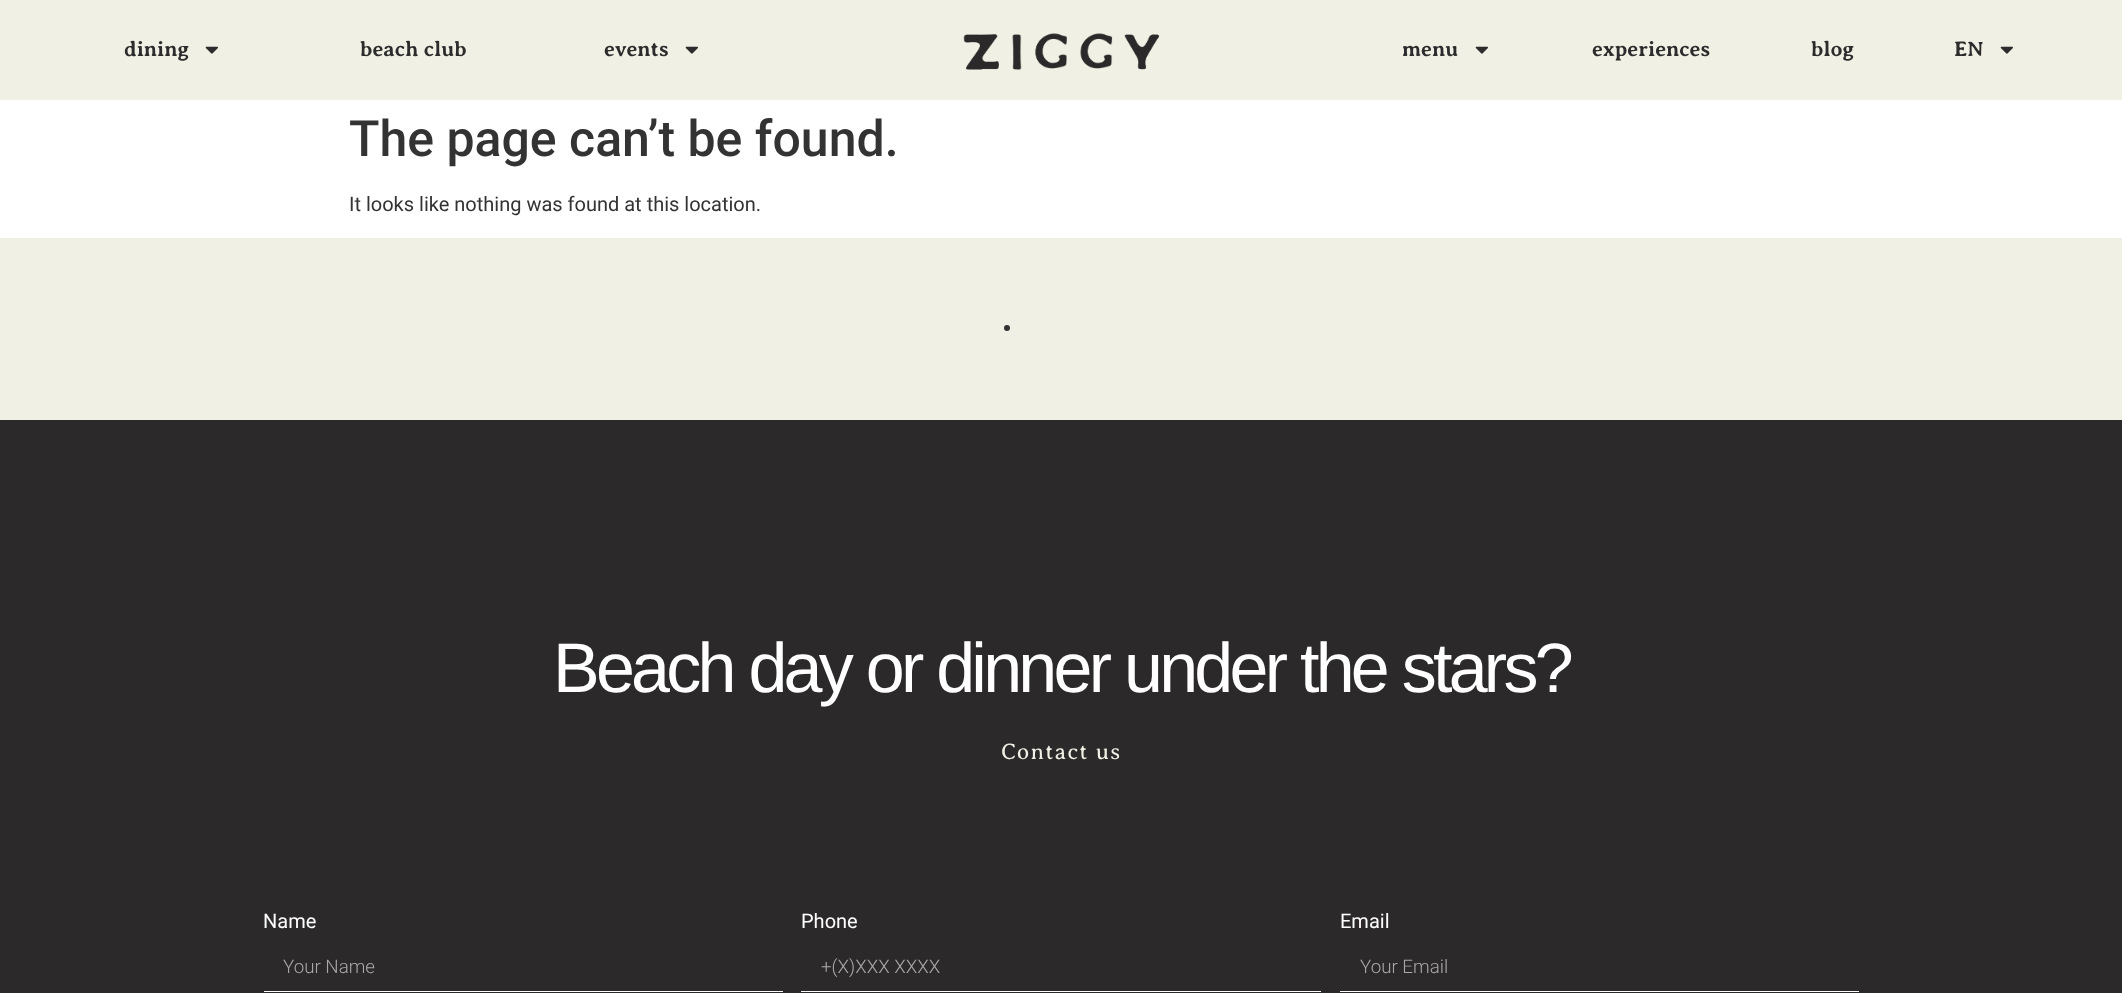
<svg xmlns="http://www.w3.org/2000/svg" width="2122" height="993">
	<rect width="100%" height="100%" fill="#FFFFFF" />
	<rect x="0" y="0" width="2122" height="100" fill="#F0F0E5" />
	<text x="124" y="56" font-family="Averia Serif Libre" font-size="21.25" font-weight="700" fill="#2C2C2C">dining</text>
	<image x="205" y="46" width="13" height="8" href="assets/img1.png" />
	<g font-family="Averia Serif Libre" font-size="21.25" font-weight="700" fill="#2C2C2C">
		<text x="360" y="56">beach club</text>
		<text x="604" y="56">events</text>
	</g>
	<image x="685" y="46" width="13" height="8" href="assets/img1.png" />
	<image x="963" y="33" width="197" height="37" href="assets/img2.png" />
	<text x="1402" y="56" font-family="Averia Serif Libre" font-size="21.25" font-weight="700" fill="#2C2C2C">menu</text>
	<image x="1475" y="46" width="13" height="8" href="assets/img1.png" />
	<g font-family="Averia Serif Libre" font-size="21.25" font-weight="700" fill="#2C2C2C">
		<text x="1592" y="56">experiences</text>
		<text x="1811" y="56">blog</text>
		<text x="1954" y="56">EN</text>
	</g>
	<image x="2000" y="46" width="13" height="8" href="assets/img1.png" />
	<text x="349" y="156" font-family="Roboto" font-size="50" font-weight="500" fill="#333333">The page can’t be found.</text>
	<text x="349" y="211" font-family="Roboto" font-size="20" fill="#333333">It looks like nothing was found at this location.</text>
	<rect x="0" y="238" width="2122" height="182" fill="#F0F0E5" />
	<circle cx="1007" cy="328" r="3" fill="#333333" />
	<rect x="0" y="420" width="2122" height="573" fill="#2B292A" />
	<text x="553" y="692" font-family="Liberation Sans" font-size="70" letter-spacing="-3.75" fill="#FFFFFF">Beach day or dinner under the stars?</text>
	<text x="1001" y="759" font-family="Averia Serif Libre" font-size="22.5" font-weight="300" letter-spacing="1.25" fill="#F0F0E5">Contact us</text>
	<text x="263" y="928" font-family="Roboto" font-size="20" fill="#FFFFFF">Name</text>
	<rect x="264" y="991" width="519" height="1" fill="#FFFFFF" />
	<text x="283" y="973" font-family="Roboto" font-size="18.75" font-weight="300" fill="#AAA9AA">Your Name</text>
	<text x="801" y="928" font-family="Roboto" font-size="20" fill="#FFFFFF">Phone</text>
	<rect x="801" y="991" width="520" height="1" fill="#FFFFFF" />
	<text x="821" y="973" font-family="Roboto" font-size="18.75" font-weight="300" fill="#AAA9AA">+(X)XXX XXXX</text>
	<text x="1340" y="928" font-family="Roboto" font-size="20" fill="#FFFFFF">Email</text>
	<rect x="1340" y="991" width="519" height="1" fill="#FFFFFF" />
	<text x="1360" y="973" font-family="Roboto" font-size="18.75" font-weight="300" fill="#AAA9AA">Your Email</text>
</svg>
